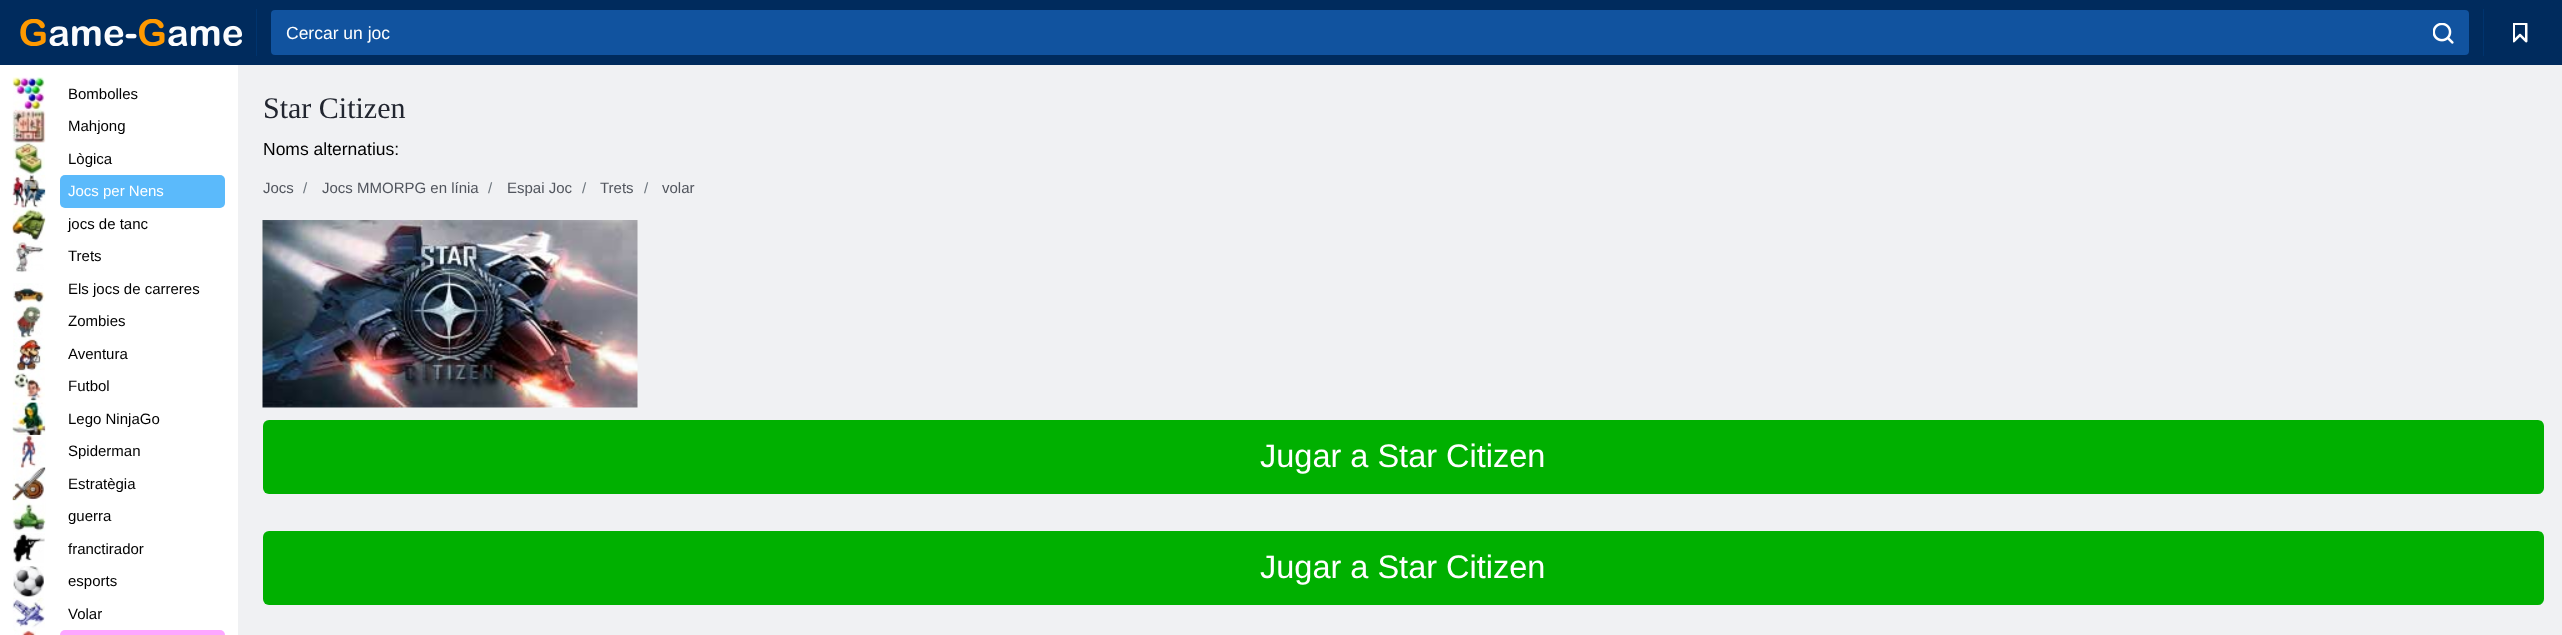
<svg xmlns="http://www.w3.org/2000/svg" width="2562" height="635">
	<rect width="100%" height="100%" fill="#F0F1F3" />
	<rect x="0" y="0" width="2562" height="65" fill="#002B5D" />
	<image x="20" y="19" width="223" height="27" href="assets/img1.png" />
	<rect x="256" y="9" width="1" height="47" fill="#00346E" />
	<rect x="271" y="10" width="2198" height="45" rx="4" fill="#11539F" />
	<text x="286" y="39" font-family="Liberation Sans" font-size="17.5" fill="#FFFFFF">Cercar un joc</text>
	<image x="2433" y="23" width="21" height="21" href="assets/img2.png" />
	<rect x="2483" y="9" width="1" height="47" fill="#00346E" />
	<image x="2513" y="23" width="15" height="20" href="assets/img3.png" />
	<rect x="0" y="65" width="238" height="570" fill="#FFFFFF" />
	<image x="12" y="77" width="33" height="33" href="assets/img4.png" />
	<text x="68" y="99" font-family="Liberation Sans" font-size="15" fill="#000000">Bombolles</text>
	<image x="12" y="110" width="34" height="33" href="assets/img5.png" />
	<text x="68" y="131" font-family="Liberation Sans" font-size="15" fill="#000000">Mahjong</text>
	<image x="13" y="142" width="32" height="33" href="assets/img6.png" />
	<text x="68" y="164" font-family="Liberation Sans" font-size="15" fill="#000000">Lògica</text>
	<image x="12" y="175" width="34" height="33" href="assets/img7.png" />
	<rect x="60" y="175" width="165" height="33" rx="5" fill="#5BBAFB" />
	<text x="68" y="196" font-family="Liberation Sans" font-size="15" fill="#FFFFFF">Jocs per Nens</text>
	<image x="12" y="207" width="34" height="33" href="assets/img8.png" />
	<text x="68" y="229" font-family="Liberation Sans" font-size="15" fill="#000000">jocs de tanc</text>
	<image x="13" y="240" width="31" height="33" href="assets/img9.png" />
	<text x="68" y="261" font-family="Liberation Sans" font-size="15" fill="#000000">Trets</text>
	<image x="13" y="283" width="32" height="22" href="assets/img10.png" />
	<text x="68" y="294" font-family="Liberation Sans" font-size="15" fill="#000000">Els jocs de carreres</text>
	<image x="13" y="305" width="30" height="33" href="assets/img11.png" />
	<text x="68" y="326" font-family="Liberation Sans" font-size="15" fill="#000000">Zombies</text>
	<image x="13" y="337" width="32" height="33" href="assets/img12.png" />
	<text x="68" y="359" font-family="Liberation Sans" font-size="15" fill="#000000">Aventura</text>
	<image x="13" y="370" width="32" height="33" href="assets/img13.png" />
	<text x="68" y="391" font-family="Liberation Sans" font-size="15" fill="#000000">Futbol</text>
	<image x="12" y="402" width="34" height="33" href="assets/img14.png" />
	<text x="68" y="424" font-family="Liberation Sans" font-size="15" fill="#000000">Lego NinjaGo</text>
	<image x="13" y="435" width="33" height="33" href="assets/img15.png" />
	<text x="68" y="456" font-family="Liberation Sans" font-size="15" fill="#000000">Spiderman</text>
	<image x="12" y="467" width="34" height="33" href="assets/img16.png" />
	<text x="68" y="489" font-family="Liberation Sans" font-size="15" fill="#000000">Estratègia</text>
	<image x="12" y="500" width="34" height="32" href="assets/img17.png" />
	<text x="68" y="521" font-family="Liberation Sans" font-size="15" fill="#000000">guerra</text>
	<image x="13" y="533" width="32" height="30" href="assets/img18.png" />
	<text x="68" y="554" font-family="Liberation Sans" font-size="15" fill="#000000">franctirador</text>
	<image x="13" y="566" width="31" height="32" href="assets/img19.png" />
	<text x="68" y="586" font-family="Liberation Sans" font-size="15" fill="#000000">esports</text>
	<image x="12" y="598" width="33" height="32" href="assets/img20.png" />
	<text x="68" y="619" font-family="Liberation Sans" font-size="15" fill="#000000">Volar</text>
	<image x="14" y="630" width="22" height="5" href="assets/img21.png" />
	<rect x="60" y="630" width="165" height="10" rx="5" fill="#FDA7FF" />
	<text x="263" y="118" font-family="Liberation Serif" font-size="30" fill="#222630">Star Citizen</text>
	<text x="263" y="155" font-family="Liberation Sans" font-size="17.5" fill="#000000">Noms alternatius:</text>
	<text x="263" y="193" font-family="Liberation Sans" font-size="15" fill="#51555D">Jocs</text>
	<text x="303" y="193" font-family="Liberation Sans" font-size="15" fill="#6C757D">/</text>
	<text x="322" y="193" font-family="Liberation Sans" font-size="15" fill="#51555D">Jocs MMORPG en línia</text>
	<text x="488" y="193" font-family="Liberation Sans" font-size="15" fill="#6C757D">/</text>
	<text x="507" y="193" font-family="Liberation Sans" font-size="15" fill="#51555D">Espai Joc</text>
	<text x="582" y="193" font-family="Liberation Sans" font-size="15" fill="#6C757D">/</text>
	<text x="600" y="193" font-family="Liberation Sans" font-size="15" fill="#51555D">Trets</text>
	<text x="644" y="193" font-family="Liberation Sans" font-size="15" fill="#6C757D">/</text>
	<text x="662" y="193" font-family="Liberation Sans" font-size="15" fill="#51555D">volar</text>
	<image x="262" y="220" width="376" height="188" href="assets/img22.png" />
	<rect x="263" y="420" width="2281" height="74" rx="6" fill="#00B000" />
	<text x="1260" y="467" font-family="Liberation Sans" font-size="32.5" fill="#FFFFFF">Jugar a Star Citizen</text>
	<rect x="263" y="531" width="2281" height="74" rx="6" fill="#00B000" />
	<text x="1260" y="578" font-family="Liberation Sans" font-size="32.5" fill="#FFFFFF">Jugar a Star Citizen</text>
</svg>
